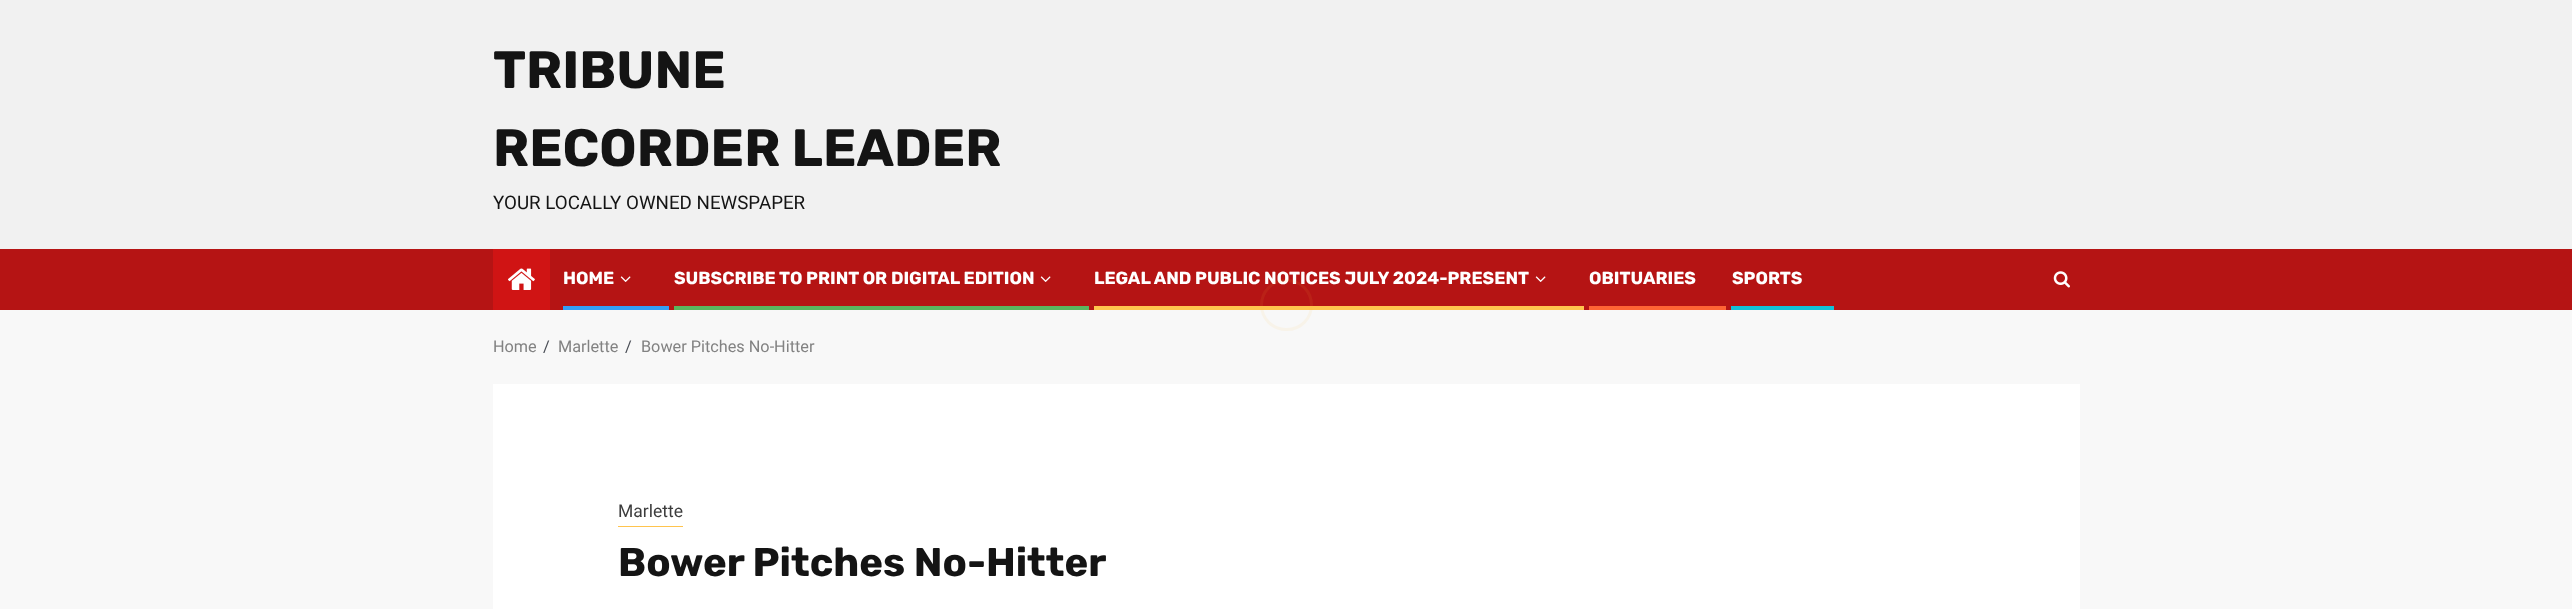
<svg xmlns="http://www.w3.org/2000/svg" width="2572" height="609">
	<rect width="100%" height="100%" fill="#F8F8F8" />
	<rect x="0" y="0" width="2572" height="249" fill="#F1F1F1" />
	<g font-family="Rubik" font-size="52.5" font-weight="700" fill="#141414">
		<text x="493" y="88">TRIBUNE</text>
		<text x="493" y="166">RECORDER LEADER</text>
	</g>
	<text x="493" y="209" font-family="Roboto" font-size="18.75" fill="#141414">YOUR LOCALLY OWNED NEWSPAPER</text>
	<rect x="0" y="249" width="2572" height="61" fill="#B51414" />
	<rect x="493" y="249" width="57" height="61" fill="#D01414" />
	<image x="508" y="268" width="27" height="22" href="assets/img1.png" />
	<text x="563" y="284" font-family="Rubik" font-size="17.5" font-weight="700" fill="#FFFFFF">HOME</text>
	<image x="620" y="276" width="11" height="6" href="assets/img2.png" />
	<rect x="563" y="306" width="106" height="4" fill="#339EF4" />
	<text x="674" y="284" font-family="Rubik" font-size="17.5" font-weight="700" fill="#FFFFFF">SUBSCRIBE TO PRINT OR DIGITAL EDITION</text>
	<image x="1040" y="276" width="11" height="6" href="assets/img2.png" />
	<rect x="674" y="306" width="415" height="4" fill="#5AB55E" />
	<text x="1094" y="284" font-family="Rubik" font-size="17.5" font-weight="700" fill="#FFFFFF">LEGAL AND PUBLIC NOTICES JULY 2024-PRESENT</text>
	<image x="1535" y="276" width="11" height="6" href="assets/img2.png" />
	<rect x="1094" y="306" width="490" height="4" fill="#FFC44E" />
	<text x="1589" y="284" font-family="Rubik" font-size="17.5" font-weight="700" fill="#FFFFFF">OBITUARIES</text>
	<rect x="1589" y="306" width="137" height="4" fill="#FF6434" />
	<text x="1732" y="284" font-family="Rubik" font-size="17.5" font-weight="700" fill="#FFFFFF">SPORTS</text>
	<rect x="1731" y="306" width="103" height="4" fill="#14C1D7" />
	<image x="2053" y="271" width="17" height="17" href="assets/img3.png" />
	<text x="493" y="352" font-family="Roboto" font-size="16.25" fill="#828282">Home</text>
	<text x="543" y="352" font-family="Roboto" font-size="16.25" fill="#494D55">/</text>
	<text x="558" y="352" font-family="Roboto" font-size="16.25" fill="#828282">Marlette</text>
	<text x="625" y="352" font-family="Roboto" font-size="16.25" fill="#494D55">/</text>
	<text x="641" y="352" font-family="Roboto" font-size="16.25" fill="#828282">Bower Pitches No-Hitter</text>
	<rect x="493" y="384" width="1587" height="225" fill="#FFFFFF" />
	<rect x="618" y="526" width="65" height="1" fill="#FFC44E" />
	<text x="618" y="517" font-family="Roboto" font-size="17.5" fill="#3C3C3C">Marlette</text>
	<text x="618" y="576" font-family="Rubik" font-size="40" font-weight="700" fill="#141414">Bower Pitches No-Hitter</text>
	<rect x="1261.5" y="280.5" width="50" height="49" rx="24.5" fill="none" stroke="#FFBF3F" stroke-opacity="0.08" stroke-width="3" />
</svg>
